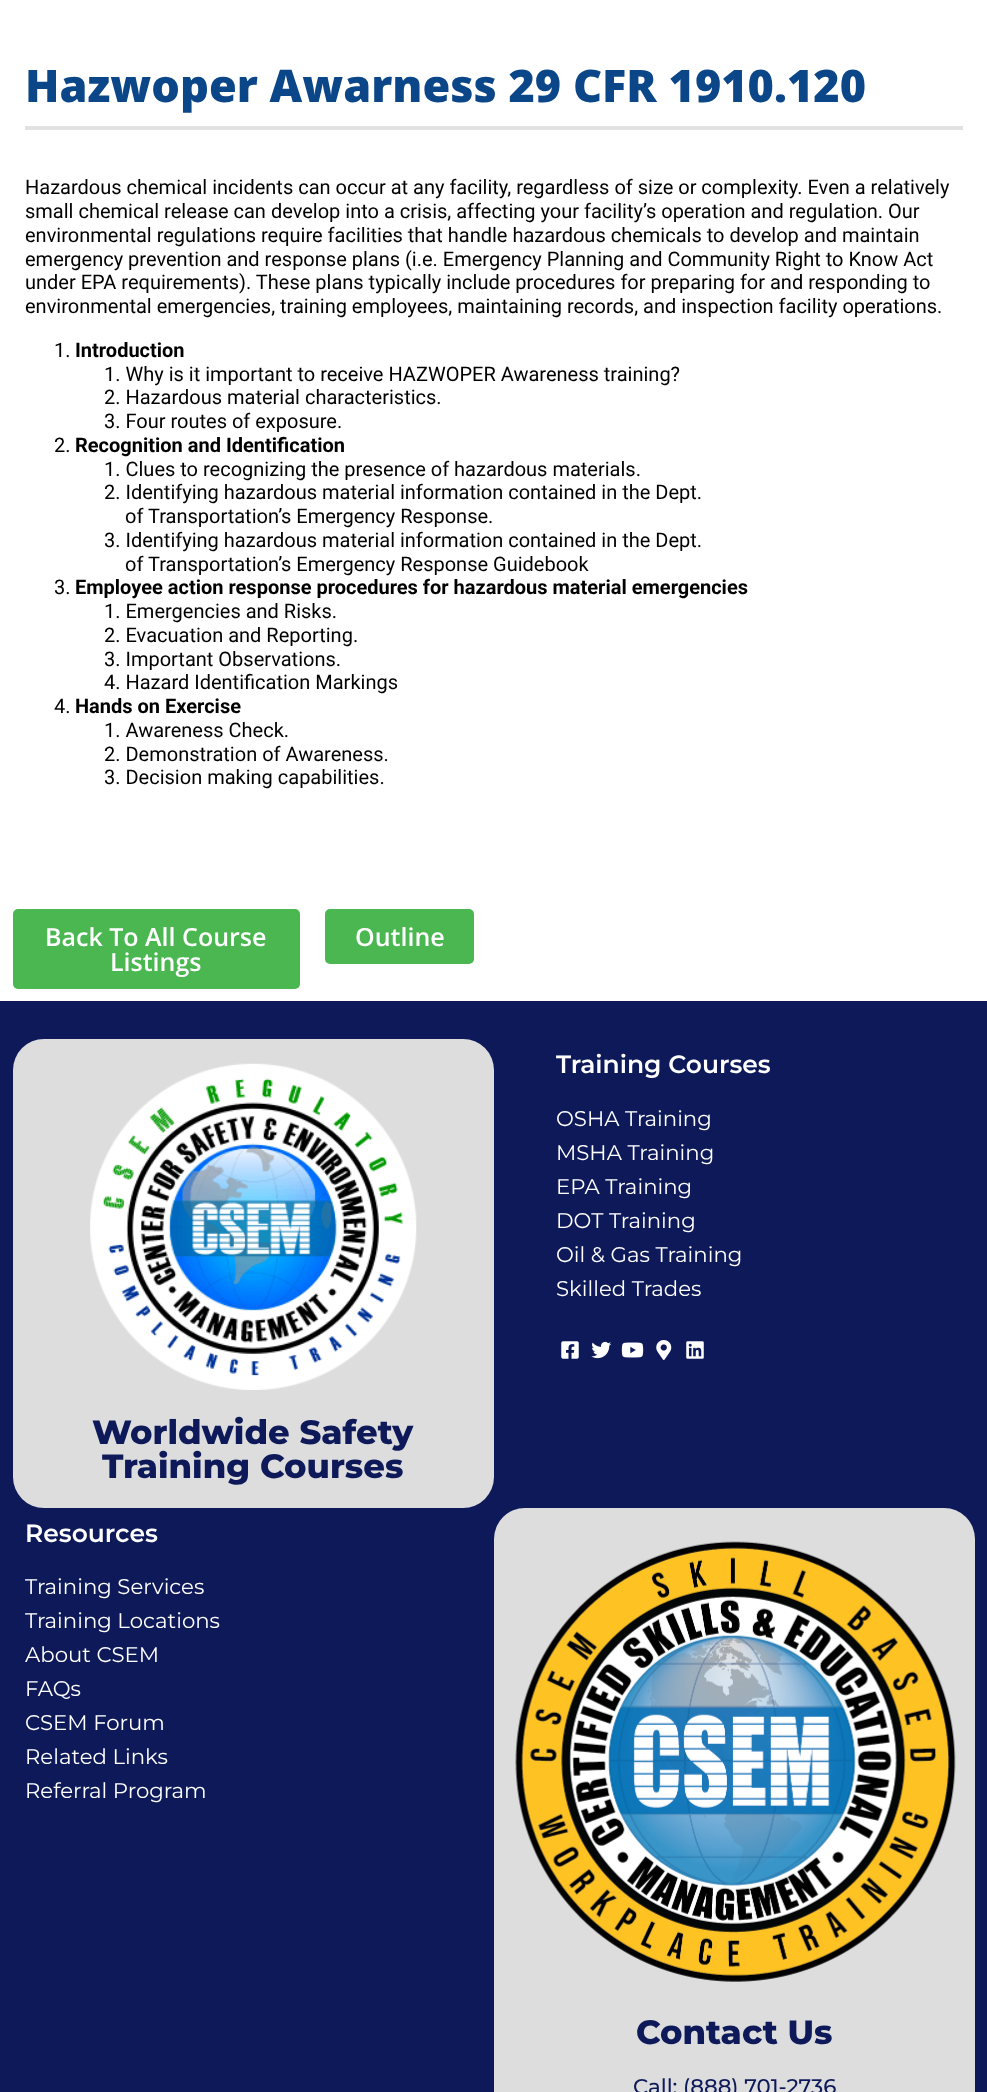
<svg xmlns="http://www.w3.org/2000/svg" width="987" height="2092">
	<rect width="100%" height="100%" fill="#FFFFFF" />
	<rect x="25" y="126" width="938" height="4" fill="#E2E2E2" />
	<text x="25" y="102" font-family="Open Sans" font-size="45" font-weight="800" fill="#0B4688">Hazwoper Awarness 29 CFR 1910.120</text>
	<g font-family="Roboto" font-size="20" fill="#000000">
		<text x="25" y="194">Hazardous chemical incidents can occur at any facility, regardless of size or complexity. Even a relatively</text>
		<text x="25" y="218">small chemical release can develop into a crisis, affecting your facility’s operation and regulation. Our</text>
		<text x="25" y="242">environmental regulations require facilities that handle hazardous chemicals to develop and maintain</text>
		<text x="25" y="266">emergency prevention and response plans (i.e. Emergency Planning and Community Right to Know Act</text>
		<text x="25" y="289">under EPA requirements). These plans typically include procedures for preparing for and responding to</text>
		<text x="25" y="313">environmental emergencies, training employees, maintaining records, and inspection facility operations.</text>
		<text x="54" y="357">1.</text>
	</g>
	<text x="75" y="357" font-family="Roboto" font-size="20" font-weight="700" fill="#000000">Introduction</text>
	<g font-family="Roboto" font-size="20" fill="#000000">
		<text x="104" y="381">1. Why is it important to receive HAZWOPER Awareness training?</text>
		<text x="104" y="404">2. Hazardous material characteristics.</text>
		<text x="104" y="428">3. Four routes of exposure.</text>
		<text x="54" y="452">2.</text>
	</g>
	<text x="75" y="452" font-family="Roboto" font-size="20" font-weight="700" fill="#000000">Recognition and Identification</text>
	<g font-family="Roboto" font-size="20" fill="#000000">
		<text x="104" y="476">1. Clues to recognizing the presence of hazardous materials.</text>
		<text x="104" y="499">2. Identifying hazardous material information contained in the Dept.</text>
		<text x="125" y="523">of Transportation’s Emergency Response.</text>
		<text x="104" y="547">3. Identifying hazardous material information contained in the Dept.</text>
		<text x="125" y="571">of Transportation’s Emergency Response Guidebook</text>
		<text x="54" y="594">3.</text>
	</g>
	<text x="75" y="594" font-family="Roboto" font-size="20" font-weight="700" fill="#000000">Employee action response procedures for hazardous material emergencies</text>
	<g font-family="Roboto" font-size="20" fill="#000000">
		<text x="104" y="618">1. Emergencies and Risks.</text>
		<text x="104" y="642">2. Evacuation and Reporting.</text>
		<text x="104" y="666">3. Important Observations.</text>
		<text x="104" y="689">4. Hazard Identification Markings</text>
		<text x="54" y="713">4.</text>
	</g>
	<text x="75" y="713" font-family="Roboto" font-size="20" font-weight="700" fill="#000000">Hands on Exercise</text>
	<g font-family="Roboto" font-size="20" fill="#000000">
		<text x="104" y="737">1. Awareness Check.</text>
		<text x="104" y="761">2. Demonstration of Awareness.</text>
		<text x="104" y="784">3. Decision making capabilities.</text>
	</g>
	<rect x="13" y="909" width="287" height="80" rx="5" fill="#4AB750" />
	<g font-family="Open Sans" font-size="25" font-weight="600" fill="#FFFFFF">
		<text x="45" y="946">Back To All Course</text>
		<text x="110" y="971">Listings</text>
	</g>
	<rect x="325" y="909" width="149" height="55" rx="5" fill="#4AB750" />
	<text x="355" y="946" font-family="Open Sans" font-size="25" font-weight="600" fill="#FFFFFF">Outline</text>
	<rect x="0" y="1001" width="987" height="1091" fill="#0D1959" />
	<text x="556" y="1073" font-family="Montserrat" font-size="25" font-weight="600" fill="#FFFFFF">Training Courses</text>
	<g font-family="Montserrat" font-size="21.25" fill="#FFFFFF">
		<text x="556" y="1126">OSHA Training</text>
		<text x="556" y="1160">MSHA Training</text>
		<text x="556" y="1194">EPA Training</text>
		<text x="556" y="1228">DOT Training</text>
		<text x="556" y="1262">Oil &amp; Gas Training</text>
		<text x="556" y="1296">Skilled Trades</text>
	</g>
	<image x="561" y="1341" width="18" height="18" href="assets/img1.png" />
	<image x="591" y="1341" width="21" height="18" href="assets/img2.png" />
	<image x="621" y="1342" width="23" height="16" href="assets/img3.png" />
	<image x="656" y="1340" width="16" height="20" href="assets/img4.png" />
	<image x="686" y="1341" width="18" height="18" href="assets/img5.png" />
	<rect x="13" y="1039" width="481" height="469" rx="31" fill="#DDDDDD" />
	<image x="90" y="1063" width="327" height="327" href="assets/img6.png" />
	<g font-family="Montserrat" font-size="33.75" font-weight="800" fill="#0D1959">
		<text x="92" y="1444">Worldwide Safety</text>
		<text x="102" y="1478">Training Courses</text>
	</g>
	<text x="25" y="1542" font-family="Montserrat" font-size="25" font-weight="600" fill="#FFFFFF">Resources</text>
	<g font-family="Montserrat" font-size="21.25" fill="#FFFFFF">
		<text x="25" y="1594">Training Services</text>
		<text x="25" y="1628">Training Locations</text>
		<text x="25" y="1662">About CSEM</text>
		<text x="25" y="1696">FAQs</text>
		<text x="25" y="1730">CSEM Forum</text>
		<text x="25" y="1764">Related Links</text>
		<text x="25" y="1798">Referral Program</text>
	</g>
	<rect x="494" y="1508" width="481" height="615" rx="31" fill="#DDDDDD" />
	<image x="515" y="1541" width="441" height="441" href="assets/img7.png" />
	<text x="636" y="2044" font-family="Montserrat" font-size="33.75" font-weight="800" fill="#0D1959">Contact Us</text>
	<text x="633" y="2094" font-family="Montserrat" font-size="21.25" font-weight="500" fill="#0D1959">Call: (888) 701-2736</text>
</svg>
